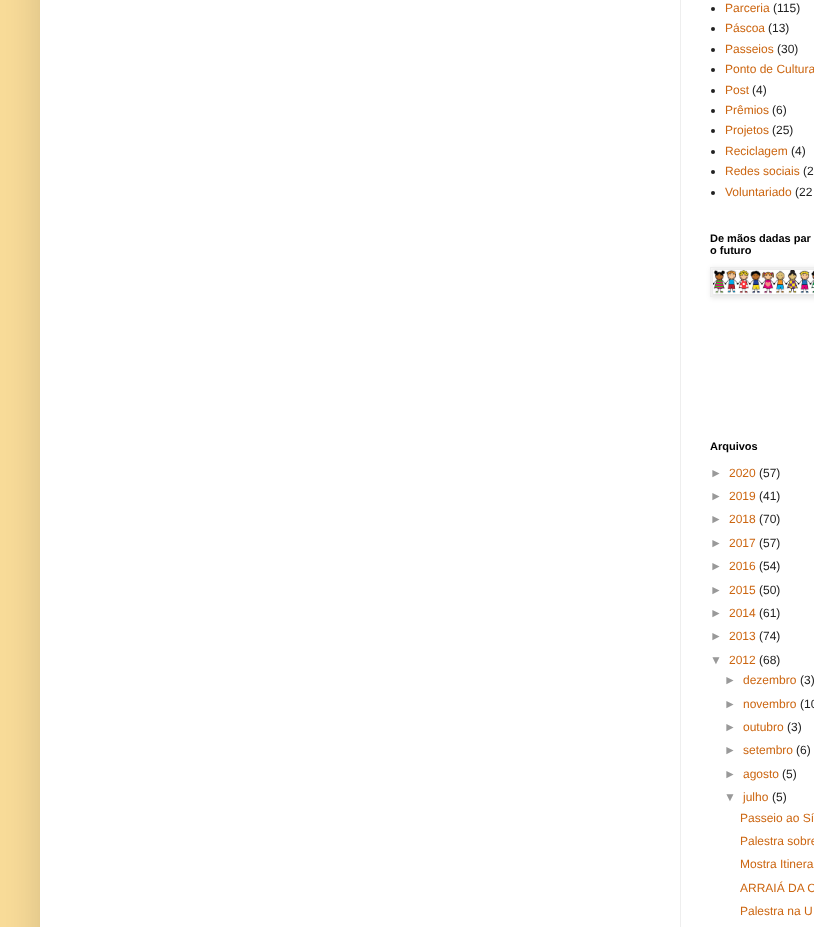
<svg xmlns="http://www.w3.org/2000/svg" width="814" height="927">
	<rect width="100%" height="100%" fill="#F9DC99" />
	<rect x="40" y="-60" width="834" height="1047" fill="#000000" fill-opacity="0.15" filter="blur(20px)" />
	<rect x="40" y="0" width="774" height="927" fill="#FFFFFF" />
	<rect x="680" y="0" width="1" height="927" fill="#EEEEEE" />
	<circle cx="713" cy="9" r="2" fill="#222222" />
	<text x="725" y="12" font-family="Liberation Sans" font-size="12" fill="#CC6611">Parceria</text>
	<text x="773" y="12" font-family="Liberation Sans" font-size="12" fill="#222222">(115)</text>
	<circle cx="713" cy="29" r="2" fill="#222222" />
	<text x="725" y="32" font-family="Liberation Sans" font-size="12" fill="#CC6611">Páscoa</text>
	<text x="768" y="32" font-family="Liberation Sans" font-size="12" fill="#222222">(13)</text>
	<circle cx="713" cy="50" r="2" fill="#222222" />
	<text x="725" y="53" font-family="Liberation Sans" font-size="12" fill="#CC6611">Passeios</text>
	<text x="777" y="53" font-family="Liberation Sans" font-size="12" fill="#222222">(30)</text>
	<circle cx="713" cy="70" r="2" fill="#222222" />
	<text x="725" y="73" font-family="Liberation Sans" font-size="12" fill="#CC6611">Ponto de Cultura</text>
	<circle cx="713" cy="91" r="2" fill="#222222" />
	<text x="725" y="94" font-family="Liberation Sans" font-size="12" fill="#CC6611">Post</text>
	<text x="752" y="94" font-family="Liberation Sans" font-size="12" fill="#222222">(4)</text>
	<circle cx="713" cy="111" r="2" fill="#222222" />
	<text x="725" y="114" font-family="Liberation Sans" font-size="12" fill="#CC6611">Prêmios</text>
	<text x="772" y="114" font-family="Liberation Sans" font-size="12" fill="#222222">(6)</text>
	<circle cx="713" cy="131" r="2" fill="#222222" />
	<text x="725" y="134" font-family="Liberation Sans" font-size="12" fill="#CC6611">Projetos</text>
	<text x="772" y="134" font-family="Liberation Sans" font-size="12" fill="#222222">(25)</text>
	<circle cx="713" cy="152" r="2" fill="#222222" />
	<text x="725" y="155" font-family="Liberation Sans" font-size="12" fill="#CC6611">Reciclagem</text>
	<text x="791" y="155" font-family="Liberation Sans" font-size="12" fill="#222222">(4)</text>
	<circle cx="713" cy="172" r="2" fill="#222222" />
	<text x="725" y="175" font-family="Liberation Sans" font-size="12" fill="#CC6611">Redes sociais</text>
	<text x="803" y="175" font-family="Liberation Sans" font-size="12" fill="#222222">(2</text>
	<circle cx="713" cy="193" r="2" fill="#222222" />
	<text x="725" y="196" font-family="Liberation Sans" font-size="12" fill="#CC6611">Voluntariado</text>
	<text x="795" y="196" font-family="Liberation Sans" font-size="12" fill="#222222">(22</text>
	<g font-family="Liberation Sans" font-size="11" font-weight="700" fill="#000000">
		<text x="710" y="242">De mãos dadas par</text>
		<text x="710" y="254">o futuro</text>
	</g>
	<rect x="711" y="268" width="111" height="30" fill="#000000" fill-opacity="0.1" filter="blur(2.5px)" />
	<rect x="710.5" y="267.5" width="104" height="29" fill="none" stroke="#EEEEEE" />
	<image x="713" y="270" width="101" height="24" href="assets/img1.png" />
	<text x="710" y="450" font-family="Liberation Sans" font-size="11" font-weight="700" fill="#000000">Arquivos</text>
	<text x="710" y="477" font-family="Liberation Sans" font-size="12" fill="#999999">►</text>
	<text x="729" y="477" font-family="Liberation Sans" font-size="12" fill="#CC6611">2020</text>
	<text x="759" y="477" font-family="Liberation Sans" font-size="12" fill="#222222">(57)</text>
	<text x="710" y="500" font-family="Liberation Sans" font-size="12" fill="#999999">►</text>
	<text x="729" y="500" font-family="Liberation Sans" font-size="12" fill="#CC6611">2019</text>
	<text x="759" y="500" font-family="Liberation Sans" font-size="12" fill="#222222">(41)</text>
	<text x="710" y="523" font-family="Liberation Sans" font-size="12" fill="#999999">►</text>
	<text x="729" y="523" font-family="Liberation Sans" font-size="12" fill="#CC6611">2018</text>
	<text x="759" y="523" font-family="Liberation Sans" font-size="12" fill="#222222">(70)</text>
	<text x="710" y="547" font-family="Liberation Sans" font-size="12" fill="#999999">►</text>
	<text x="729" y="547" font-family="Liberation Sans" font-size="12" fill="#CC6611">2017</text>
	<text x="759" y="547" font-family="Liberation Sans" font-size="12" fill="#222222">(57)</text>
	<text x="710" y="570" font-family="Liberation Sans" font-size="12" fill="#999999">►</text>
	<text x="729" y="570" font-family="Liberation Sans" font-size="12" fill="#CC6611">2016</text>
	<text x="759" y="570" font-family="Liberation Sans" font-size="12" fill="#222222">(54)</text>
	<text x="710" y="594" font-family="Liberation Sans" font-size="12" fill="#999999">►</text>
	<text x="729" y="594" font-family="Liberation Sans" font-size="12" fill="#CC6611">2015</text>
	<text x="759" y="594" font-family="Liberation Sans" font-size="12" fill="#222222">(50)</text>
	<text x="710" y="617" font-family="Liberation Sans" font-size="12" fill="#999999">►</text>
	<text x="729" y="617" font-family="Liberation Sans" font-size="12" fill="#CC6611">2014</text>
	<text x="759" y="617" font-family="Liberation Sans" font-size="12" fill="#222222">(61)</text>
	<text x="710" y="640" font-family="Liberation Sans" font-size="12" fill="#999999">►</text>
	<text x="729" y="640" font-family="Liberation Sans" font-size="12" fill="#CC6611">2013</text>
	<text x="759" y="640" font-family="Liberation Sans" font-size="12" fill="#222222">(74)</text>
	<text x="710" y="664" font-family="Liberation Sans" font-size="12" fill="#999999">▼</text>
	<text x="729" y="664" font-family="Liberation Sans" font-size="12" fill="#CC6611">2012</text>
	<text x="759" y="664" font-family="Liberation Sans" font-size="12" fill="#222222">(68)</text>
	<text x="724" y="684" font-family="Liberation Sans" font-size="12" fill="#999999">►</text>
	<text x="743" y="684" font-family="Liberation Sans" font-size="12" fill="#CC6611">dezembro</text>
	<text x="800" y="684" font-family="Liberation Sans" font-size="12" fill="#222222">(3)</text>
	<text x="724" y="708" font-family="Liberation Sans" font-size="12" fill="#999999">►</text>
	<text x="743" y="708" font-family="Liberation Sans" font-size="12" fill="#CC6611">novembro</text>
	<text x="800" y="708" font-family="Liberation Sans" font-size="12" fill="#222222">(10</text>
	<text x="724" y="731" font-family="Liberation Sans" font-size="12" fill="#999999">►</text>
	<text x="743" y="731" font-family="Liberation Sans" font-size="12" fill="#CC6611">outubro</text>
	<text x="787" y="731" font-family="Liberation Sans" font-size="12" fill="#222222">(3)</text>
	<text x="724" y="754" font-family="Liberation Sans" font-size="12" fill="#999999">►</text>
	<text x="743" y="754" font-family="Liberation Sans" font-size="12" fill="#CC6611">setembro</text>
	<text x="796" y="754" font-family="Liberation Sans" font-size="12" fill="#222222">(6)</text>
	<text x="724" y="778" font-family="Liberation Sans" font-size="12" fill="#999999">►</text>
	<text x="743" y="778" font-family="Liberation Sans" font-size="12" fill="#CC6611">agosto</text>
	<text x="782" y="778" font-family="Liberation Sans" font-size="12" fill="#222222">(5)</text>
	<text x="724" y="801" font-family="Liberation Sans" font-size="12" fill="#999999">▼</text>
	<text x="743" y="801" font-family="Liberation Sans" font-size="12" fill="#CC6611">julho</text>
	<text x="772" y="801" font-family="Liberation Sans" font-size="12" fill="#222222">(5)</text>
	<g font-family="Liberation Sans" font-size="12" fill="#CC6611">
		<text x="740" y="822">Passeio ao Sí</text>
		<text x="740" y="845">Palestra sobre</text>
		<text x="740" y="868">Mostra Itinera</text>
		<text x="740" y="892">ARRAIÁ DA C</text>
		<text x="740" y="915">Palestra na U</text>
	</g>
</svg>
